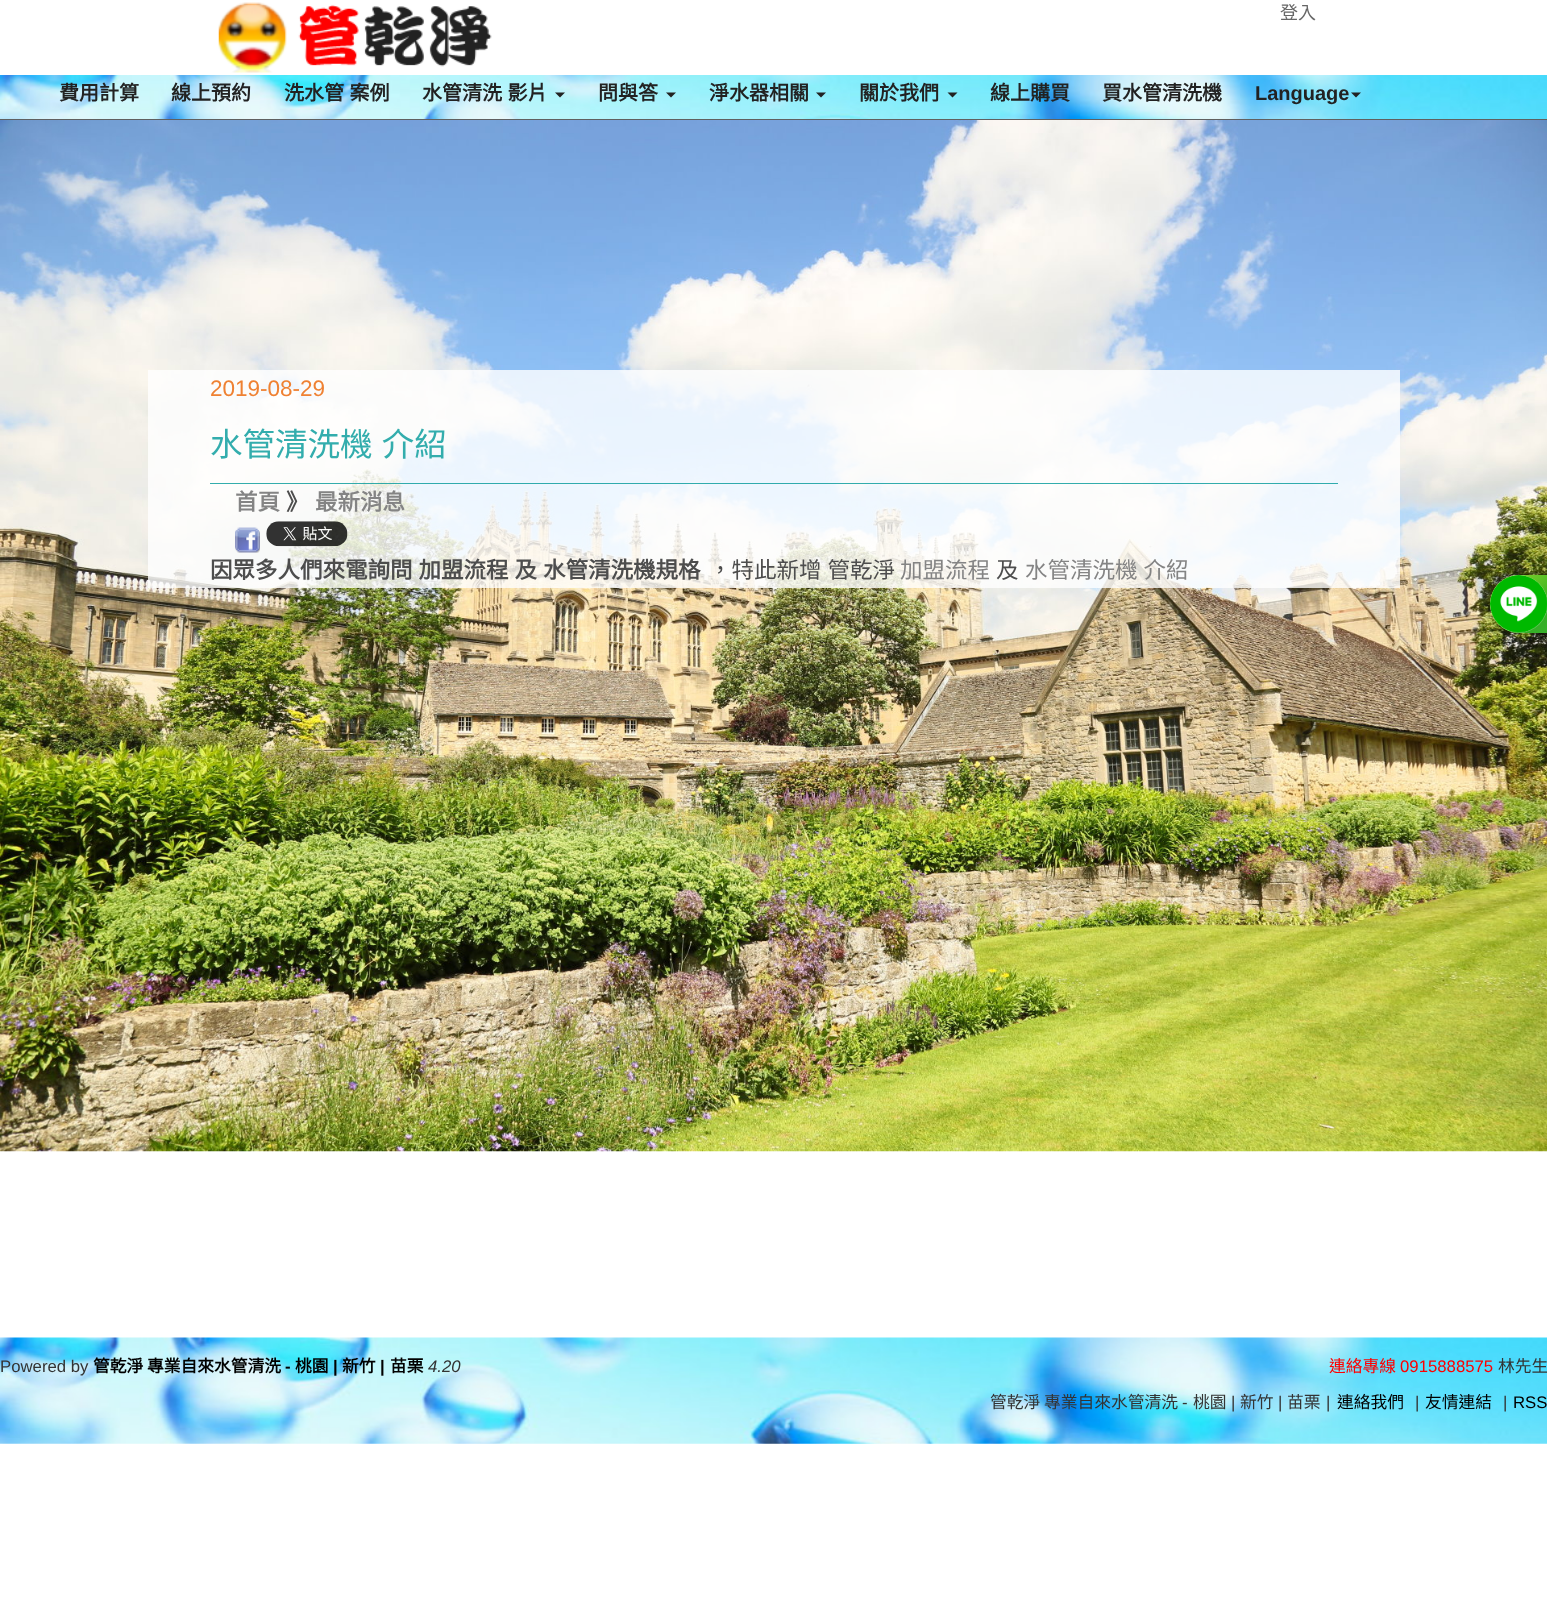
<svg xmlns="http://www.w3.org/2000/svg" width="1547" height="1610">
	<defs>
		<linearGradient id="g1" gradientUnits="userSpaceOnUse" x1="1532" y1="533" x2="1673" y2="674"><stop offset="0.01" stop-color="#9CDD2C" /><stop offset="0.32" stop-color="#33AF23" /><stop offset="1" stop-color="#61BC77" /></linearGradient>
	</defs>
	<rect width="100%" height="100%" fill="#FFFFFF" />
	<image x="0" y="75" width="1547" height="44" href="assets/img1.png" />
	<rect x="0" y="119" width="1547" height="1" fill="#606060" />
	<image x="218" y="2" width="274" height="71" href="assets/img2.png" />
	<text x="1280" y="19" font-family="Noto Sans CJK TC" font-size="18" fill="#666666">登入</text>
	<g font-family="Noto Sans CJK TC" font-size="20" font-weight="700" fill="#222222">
		<text x="59" y="100">費用計算</text>
		<text x="171" y="100">線上預約</text>
		<text x="284" y="100" word-spacing="1">洗水管 案例</text>
		<text x="422" y="100" word-spacing="1">水管清洗 影片</text>
	</g>
	<path d="M555 92.5H565L560 97.5Z" fill="#222222" />
	<text x="598" y="100" font-family="Noto Sans CJK TC" font-size="20" font-weight="700" fill="#222222">問與答</text>
	<path d="M666 92.5H676L671 97.5Z" fill="#222222" />
	<text x="709" y="100" font-family="Noto Sans CJK TC" font-size="20" font-weight="700" fill="#222222">淨水器相關</text>
	<path d="M816 92.5H826L821 97.5Z" fill="#222222" />
	<text x="859" y="100" font-family="Noto Sans CJK TC" font-size="20" font-weight="700" fill="#222222">關於我們</text>
	<path d="M947.5 92.5H957.5L952.5 97.5Z" fill="#222222" />
	<g font-family="Noto Sans CJK TC" font-size="20" font-weight="700" fill="#222222">
		<text x="990" y="100">線上購買</text>
		<text x="1102" y="100">買水管清洗機</text>
	</g>
	<text x="1255" y="100" font-family="Liberation Sans" font-size="20" font-weight="700" fill="#222222">Language</text>
	<path d="M1351 92.5H1361L1356 97.5Z" fill="#222222" />
	<image x="0" y="120" width="1547" height="1032" href="assets/img3.png" />
	<rect x="148" y="370" width="1252" height="218" fill="#FFFFFF" fill-opacity="0.8" />
	<text x="210" y="396" font-family="Liberation Sans" font-size="22.5" fill="#EF8132">2019-08-29</text>
	<rect x="210" y="483" width="1128" height="1" fill="#009999" fill-opacity="0.8" />
	<text x="210" y="456" word-spacing="2" font-family="Noto Sans CJK TC" font-size="32.5" fill="#33ADAD">水管清洗機 介紹</text>
	<text x="235" y="510" font-family="Noto Sans CJK TC" font-size="22.5" font-weight="700" fill="#848484">首頁</text>
	<text x="286" y="510" font-family="Noto Sans CJK TC" font-size="22.5" font-weight="700" fill="#4D4D4D">》</text>
	<text x="315" y="510" font-family="Noto Sans CJK TC" font-size="22.5" font-weight="700" fill="#848484">最新消息</text>
	<image x="235" y="527" width="25" height="26" href="assets/img4.png" />
	<image x="266" y="521" width="82" height="26" href="assets/img5.png" />
	<text x="210" y="578" word-spacing="1" font-family="Noto Sans CJK TC" font-size="22.5" font-weight="700" fill="#4D4D4D">因眾多人們來電詢問 加盟流程 及 水管清洗機規格</text>
	<text x="709" y="578" word-spacing="1" font-family="Noto Sans CJK TC" font-size="22.5" fill="#4D4D4D">，特此新增 管乾淨</text>
	<text x="900" y="578" font-family="Noto Sans CJK TC" font-size="22.5" fill="#848484">加盟流程</text>
	<text x="996" y="578" font-family="Noto Sans CJK TC" font-size="22.5" fill="#4D4D4D">及</text>
	<text x="1025" y="578" word-spacing="1" font-family="Noto Sans CJK TC" font-size="22.5" fill="#848484">水管清洗機 介紹</text>
	<path d="M1519 575H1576V633H1519C1503 633 1490 620 1490 604C1490 588 1503 575 1519 575Z" fill="url(#g1)" />
	<circle cx="1519" cy="604" r="29" fill="#FFFFFF" fill-opacity="0.2" />
	<image x="1490" y="575" width="57" height="58" href="assets/img6.png" />
	<image x="0" y="1337" width="1547" height="107" href="assets/img7.png" />
	<text x="0" y="1372" font-family="Liberation Sans" font-size="16.75" fill="#333333">Powered by</text>
	<text x="93" y="1372" font-family="Noto Sans CJK TC" font-size="16.75" font-weight="700" fill="#000000">管乾淨 專業自來水管清洗</text>
	<text x="285" y="1372" font-family="Liberation Sans" font-size="16.75" font-weight="700" fill="#000000">-</text>
	<text x="295" y="1372" font-family="Noto Sans CJK TC" font-size="16.75" font-weight="700" fill="#000000">桃園</text>
	<text x="333" y="1372" font-family="Liberation Sans" font-size="16.75" font-weight="700" fill="#000000">|</text>
	<text x="342" y="1372" font-family="Noto Sans CJK TC" font-size="16.75" font-weight="700" fill="#000000">新竹</text>
	<text x="380" y="1372" font-family="Liberation Sans" font-size="16.75" font-weight="700" fill="#000000">|</text>
	<text x="390" y="1372" font-family="Noto Sans CJK TC" font-size="16.75" font-weight="700" fill="#000000">苗栗</text>
	<text x="428" y="1372" font-family="Liberation Sans" font-size="16.75" font-style="italic" fill="#333333">4.20</text>
	<text x="1329" y="1372" font-family="Noto Sans CJK TC" font-size="16.75" fill="#FF0000">連絡專線</text>
	<text x="1400" y="1372" font-family="Liberation Sans" font-size="16.75" fill="#FF0000">0915888575</text>
	<g font-family="Noto Sans CJK TC" font-size="16.75" fill="#333333">
		<text x="1498" y="1372">林先生</text>
		<text x="990" y="1408">管乾淨 專業自來水管清洗</text>
	</g>
	<text x="1182" y="1408" font-family="Liberation Sans" font-size="16.75" fill="#333333">-</text>
	<text x="1193" y="1408" font-family="Noto Sans CJK TC" font-size="16.75" fill="#333333">桃園</text>
	<text x="1231" y="1408" font-family="Liberation Sans" font-size="16.75" fill="#333333">|</text>
	<text x="1240" y="1408" font-family="Noto Sans CJK TC" font-size="16.75" fill="#333333">新竹</text>
	<text x="1278" y="1408" font-family="Liberation Sans" font-size="16.75" fill="#333333">|</text>
	<text x="1287" y="1408" font-family="Noto Sans CJK TC" font-size="16.75" fill="#333333">苗栗</text>
	<text x="1326" y="1408" font-family="Liberation Sans" font-size="16.75" fill="#333333">|</text>
	<text x="1337" y="1408" font-family="Noto Sans CJK TC" font-size="16.75" fill="#000000">連絡我們</text>
	<text x="1415" y="1408" font-family="Liberation Sans" font-size="16.75" fill="#333333">|</text>
	<text x="1425" y="1408" font-family="Noto Sans CJK TC" font-size="16.75" fill="#000000">友情連結</text>
	<text x="1503" y="1408" font-family="Liberation Sans" font-size="16.75" fill="#333333">|</text>
	<text x="1513" y="1408" font-family="Liberation Sans" font-size="16.75" fill="#000000">RSS</text>
</svg>
